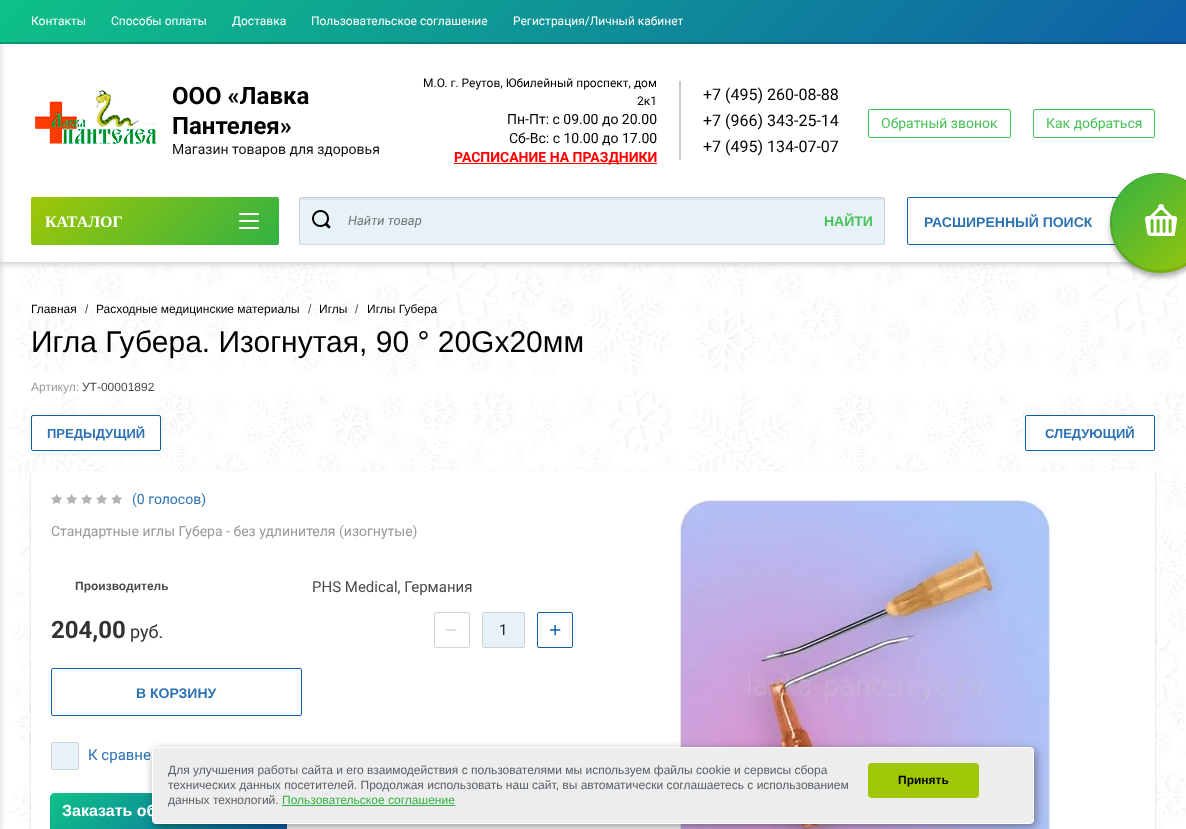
<svg xmlns="http://www.w3.org/2000/svg" width="1186" height="829">
	<defs>
		<linearGradient id="g1" gradientUnits="userSpaceOnUse" x1="285" y1="-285" x2="901" y2="330"><stop offset="0" stop-color="#0EC187" /><stop offset="1" stop-color="#0F5FA8" /></linearGradient>
		<linearGradient id="g2" gradientUnits="userSpaceOnUse" x1="81" y1="147" x2="229" y2="295"><stop offset="0" stop-color="#A0C706" /><stop offset="1" stop-color="#32B243" /></linearGradient>
		<linearGradient id="g3" gradientUnits="userSpaceOnUse" x1="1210" y1="273" x2="1110" y2="173"><stop offset="0" stop-color="#A0C706" /><stop offset="1" stop-color="#32B243" /></linearGradient>
		<linearGradient id="g4" gradientUnits="userSpaceOnUse" x1="100" y1="743" x2="237" y2="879"><stop offset="0" stop-color="#0EC187" /><stop offset="1" stop-color="#0F5FA8" /></linearGradient>
	</defs>
	<rect width="100%" height="100%" fill="#FFFFFF" />
	<image x="8" y="262" width="1178" height="567" href="assets/img1.png" />
	<rect x="0" y="2" width="1186" height="262" fill="#000000" fill-opacity="0.2" filter="blur(3px)" />
	<rect x="0" y="44" width="1186" height="218" fill="#FFFFFF" />
	<rect x="-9" y="2" width="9" height="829" fill="#000000" fill-opacity="0.2" filter="blur(3px)" />
	<rect x="0" y="0" width="1186" height="44" fill="url(#g1)" />
	<rect x="0" y="42" width="1186" height="2" fill="#000000" fill-opacity="0.2" />
	<g font-family="Roboto" font-size="12" fill="#FFFFFF">
		<text x="31" y="25">Контакты</text>
		<text x="111" y="25">Способы оплаты</text>
		<text x="232" y="25">Доставка</text>
		<text x="311" y="25">Пользовательское соглашение</text>
		<text x="513" y="25">Регистрация/Личный кабинет</text>
	</g>
	<image x="35" y="90" width="122" height="54" href="assets/img2.png" />
	<g font-family="Roboto" font-size="24" font-weight="700" fill="#000000">
		<text x="172" y="104">ООО «Лавка</text>
		<text x="172" y="134">Пантелея»</text>
	</g>
	<text x="172" y="154" font-family="Roboto" font-size="14" fill="#121212">Магазин товаров для здоровья</text>
	<g font-family="Roboto" font-size="12" fill="#000000">
		<text x="423" y="87">М.О. г. Реутов, Юбилейный проспект, дом</text>
		<text x="637" y="105">2к1</text>
	</g>
	<g font-family="Roboto" font-size="14" fill="#000000">
		<text x="507" y="124">Пн-Пт: с 09.00 до 20.00</text>
		<text x="509" y="143">Сб-Вс: с 10.00 до 17.00</text>
	</g>
	<rect x="454" y="163" width="203" height="1" fill="#FF0000" />
	<text x="454" y="162" font-family="Roboto" font-size="14" font-weight="700" fill="#FF0000">РАСПИСАНИЕ НА ПРАЗДНИКИ</text>
	<rect x="679" y="81" width="2" height="79" fill="#CCCCCC" />
	<g font-family="Roboto" font-size="16" fill="#000000">
		<text x="703" y="100">+7 (495) 260-08-88</text>
		<text x="703" y="126">+7 (966) 343-25-14</text>
		<text x="703" y="152">+7 (495) 134-07-07</text>
	</g>
	<rect x="868.5" y="109.5" width="142" height="28" rx="1.5" fill="none" stroke="#47C257" />
	<text x="881" y="128" font-family="Roboto" font-size="14" fill="#47C257">Обратный звонок</text>
	<rect x="1033.5" y="109.5" width="121" height="28" rx="1.5" fill="none" stroke="#47C257" />
	<text x="1046" y="128" font-family="Roboto" font-size="14" fill="#47C257">Как добраться</text>
	<rect x="31" y="197" width="248" height="48" rx="2" fill="url(#g2)" />
	<text x="45" y="227" font-family="Liberation Serif" font-size="16" font-weight="700" fill="#FFFFFF">КАТАЛОГ</text>
	<image x="239" y="213" width="20" height="16" href="assets/img3.png" />
	<rect x="299" y="197" width="586" height="48" rx="2" fill="#E7F1F8" />
	<rect x="299.5" y="197.5" width="585" height="47" rx="1.5" fill="none" stroke="#202020" stroke-opacity="0.1" />
	<path d="M301 200H883L884 201V245C885 244 885 244 885 243V199C885 198 884 197 883 197H301C300 197 299 198 299 199V243C299 244 299 244 300 245V201Z" fill="#000000" fill-opacity="0.05" />
	<image x="312" y="210" width="19" height="19" href="assets/img4.png" />
	<text x="348" y="225" font-family="Roboto" font-size="13" font-style="italic" fill="#757575">Найти товар</text>
	<text x="824" y="226" font-family="Liberation Sans" font-size="14" font-weight="700" fill="#47C257">НАЙТИ</text>
	<rect x="907.5" y="197.5" width="247" height="47" rx="1.5" fill="none" stroke="#0F5FA8" />
	<text x="924" y="227" font-family="Liberation Sans" font-size="14" font-weight="700" fill="#2D73B3">РАСШИРЕННЫЙ ПОИСК</text>
	<text x="31" y="313" font-family="Liberation Sans" font-size="12" fill="#000000">Главная</text>
	<text x="85" y="313" font-family="Liberation Sans" font-size="12" fill="#4A4A4A">/</text>
	<text x="96" y="313" font-family="Liberation Sans" font-size="12" fill="#000000">Расходные медицинские материалы</text>
	<text x="308" y="313" font-family="Liberation Sans" font-size="12" fill="#4A4A4A">/</text>
	<text x="319" y="313" font-family="Liberation Sans" font-size="12" fill="#000000">Иглы</text>
	<text x="355" y="313" font-family="Liberation Sans" font-size="12" fill="#4A4A4A">/</text>
	<text x="367" y="313" font-family="Liberation Sans" font-size="12" fill="#000000">Иглы Губера</text>
	<text x="31" y="352" font-family="Liberation Sans" font-size="30" fill="#000000">Игла Губера. Изогнутая, 90 ° 20Gx20мм</text>
	<text x="31" y="391" font-family="Liberation Sans" font-size="12" fill="#999999">Артикул:</text>
	<text x="82" y="391" font-family="Liberation Sans" font-size="12" fill="#4A4A4A">УТ-00001892</text>
	<rect x="31.5" y="415.5" width="129" height="35" rx="1.5" fill="#FFFFFF" stroke="#0F5FA8" />
	<text x="47" y="438" font-family="Liberation Sans" font-size="13" font-weight="700" fill="#2D73B3">ПРЕДЫДУЩИЙ</text>
	<rect x="1025.5" y="415.5" width="129" height="35" rx="1.5" fill="#FFFFFF" stroke="#0F5FA8" />
	<text x="1045" y="438" font-family="Liberation Sans" font-size="13" font-weight="700" fill="#2D73B3">СЛЕДУЮЩИЙ</text>
	<rect x="31" y="472" width="1124" height="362" rx="2" fill="#000000" fill-opacity="0.2" filter="blur(1px)" />
	<rect x="31" y="471" width="1124" height="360" rx="2" fill="#FFFFFF" />
	<image x="51" y="494" width="71" height="10" href="assets/img5.png" />
	<text x="132" y="504" font-family="Roboto" font-size="14" fill="#2D73B3">(0 голосов)</text>
	<text x="51" y="536" font-family="Roboto" font-size="14" fill="#999999">Стандартные иглы Губера - без удлинителя (изогнутые)</text>
	<text x="75" y="590" font-family="Liberation Sans" font-size="12" font-weight="700" fill="#4A4A4A">Производитель</text>
	<text x="312" y="592" font-family="'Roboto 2'" font-size="15" fill="#4A4A4A">PHS Medical, Германия</text>
	<text x="51" y="638" font-family="Roboto" font-size="24" font-weight="700" fill="#333333">204,00</text>
	<text x="130" y="638" font-family="Roboto" font-size="18" fill="#333333">руб.</text>
	<rect x="434.5" y="612.5" width="35" height="35" rx="1.5" fill="none" stroke="#D5D5D5" />
	<text x="445" y="637" font-family="Liberation Sans" font-size="21" fill="#D5D5D5">−</text>
	<rect x="482" y="612" width="43" height="36" rx="2" fill="#E7F1F8" />
	<rect x="482.5" y="612.5" width="42" height="35" rx="1.5" fill="none" stroke="#000000" stroke-opacity="0.12" />
	<text x="499" y="635" font-family="'Roboto 2'" font-size="15" fill="#212121">1</text>
	<rect x="537.5" y="612.5" width="35" height="35" rx="1.5" fill="none" stroke="#0F5FA8" />
	<text x="549" y="637" font-family="Liberation Sans" font-size="21" fill="#0F5FA8">+</text>
	<rect x="51.5" y="668.5" width="250" height="47" rx="1.5" fill="none" stroke="#0F5FA8" />
	<text x="136" y="698" font-family="Liberation Sans" font-size="14" font-weight="700" fill="#2D73B3">В КОРЗИНУ</text>
	<rect x="51" y="742" width="28" height="28" rx="2" fill="#E7F1F8" />
	<rect x="51.5" y="742.5" width="27" height="27" rx="1.5" fill="none" stroke="#000000" stroke-opacity="0.12" />
	<text x="88" y="760" font-family="'Roboto 2'" font-size="15" fill="#2D73B3">К сравне</text>
	<image x="673" y="499" width="378" height="330" href="assets/img6.png" />
	<rect x="1110" y="177" width="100" height="100" rx="50" fill="#000000" fill-opacity="0.3" filter="blur(2.5px)" />
	<circle cx="1160" cy="223" r="50" fill="url(#g3)" />
	<path d="M1160 173C1132 173 1110 195 1110 223C1110 251 1132 273 1160 273C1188 273 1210 251 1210 223C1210 195 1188 173 1160 173ZM1160 174C1133 174 1112 195 1112 222C1112 249 1133 270 1160 270C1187 270 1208 249 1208 222C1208 195 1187 174 1160 174Z" fill="#000000" fill-opacity="0.09" fill-rule="evenodd" />
	<image x="1145" y="204" width="33" height="32" href="assets/img7.png" />
	<path d="M55 793H282C285 793 287 795 287 798V829H50V798C50 795 52 793 55 793Z" fill="url(#g4)" />
	<rect x="154" y="750" width="882" height="77" rx="4" fill="#000000" fill-opacity="0.4" filter="blur(5px)" />
	<text x="62" y="816" font-family="Liberation Sans" font-size="16" font-weight="700" fill="#FFFFFF">Заказать об</text>
	<rect x="152.5" y="747.5" width="881" height="76" rx="3.5" fill="#EDEDED" stroke="#FFFFFF" />
	<g font-family="Liberation Sans" font-size="12" fill="#575F67">
		<text x="168" y="774">Для улучшения работы сайта и его взаимодействия с пользователями мы используем файлы cookie и сервисы сбора</text>
		<text x="168" y="789">технических данных посетителей. Продолжая использовать наш сайт, вы автоматически соглашаетесь с использованием</text>
		<text x="168" y="804">данных технологий.</text>
	</g>
	<text x="282" y="804" font-family="Liberation Sans" font-size="12" fill="#32B243">Пользовательское соглашение</text>
	<rect x="282" y="805" width="173" height="1" fill="#32B243" />
	<rect x="868" y="763" width="111" height="35" rx="4" fill="#A0C706" />
	<text x="898" y="784" font-family="Liberation Sans" font-size="12" font-weight="700" fill="#000000">Принять</text>
</svg>
